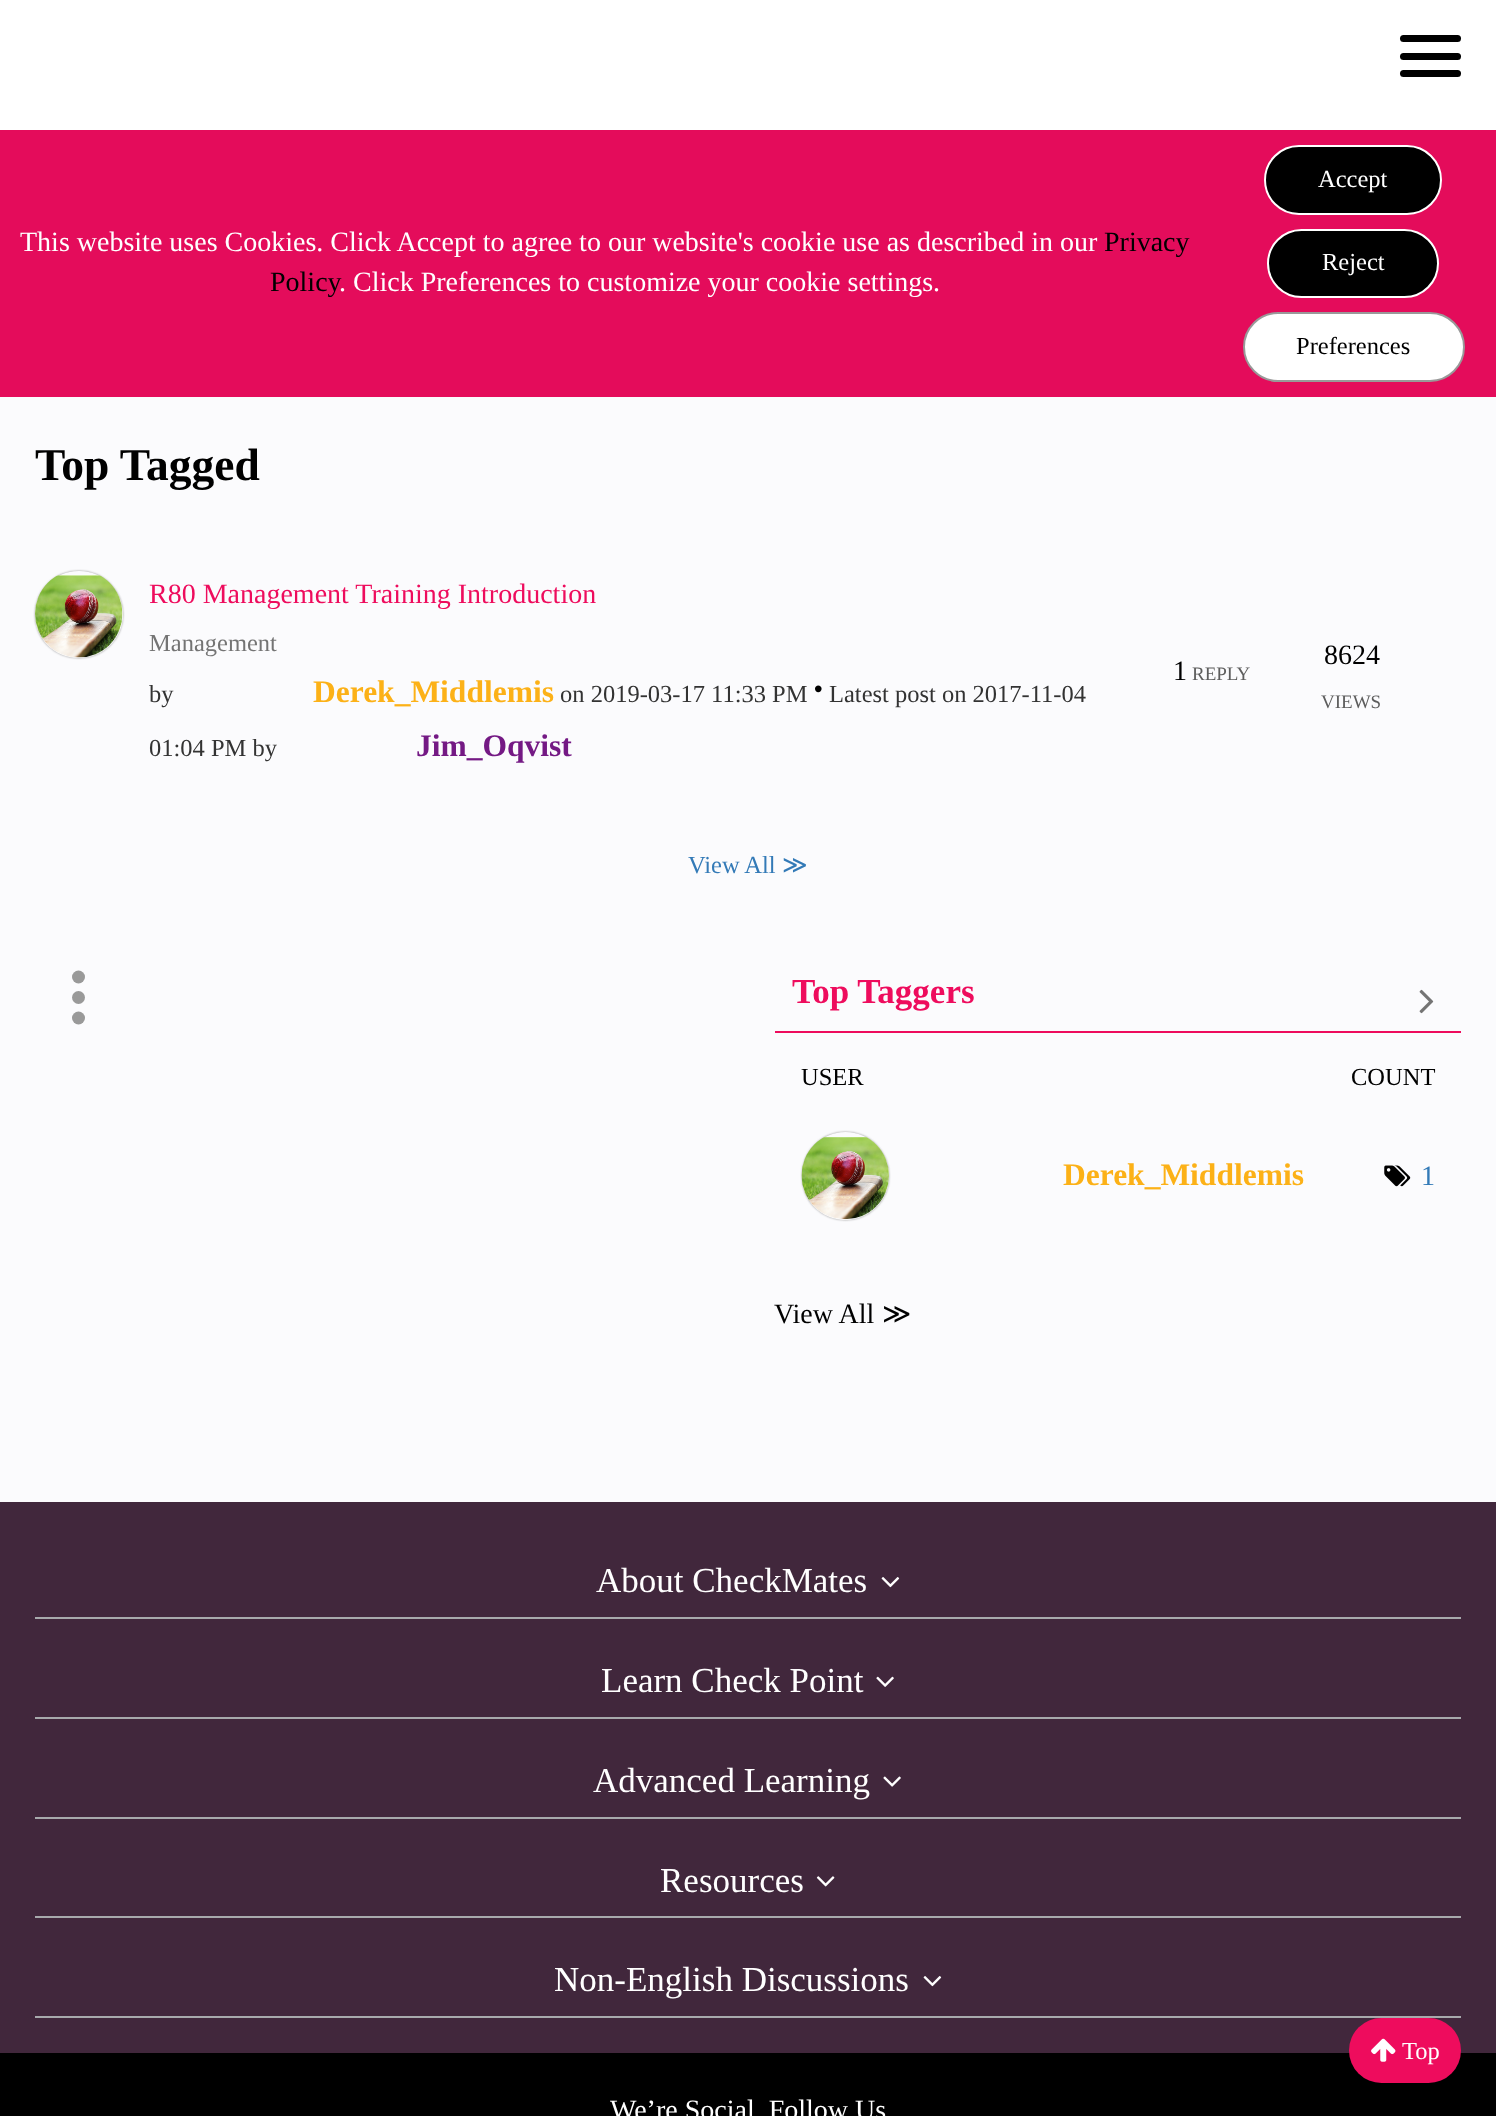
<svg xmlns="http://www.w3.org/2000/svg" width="1496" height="2116">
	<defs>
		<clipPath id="clip1"><path d="M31 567H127V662H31ZM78.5 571H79.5C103.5 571 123 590.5 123 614.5C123 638.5 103.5 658 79.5 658H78.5C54.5 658 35 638.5 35 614.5C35 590.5 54.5 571 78.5 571Z" clip-rule="evenodd" /></clipPath>
		<clipPath id="clip2"><path d="M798 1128H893V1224H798ZM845.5 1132C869.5 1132 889 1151.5 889 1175.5V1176.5C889 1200.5 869.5 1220 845.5 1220C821.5 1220 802 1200.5 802 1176.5V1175.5C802 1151.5 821.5 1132 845.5 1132Z" clip-rule="evenodd" /></clipPath>
	</defs>
	<rect width="100%" height="100%" fill="#FBFBFD" />
	<rect x="0" y="130" width="1496" height="267" fill="#E40C5B" />
	<text x="20" y="251" font-family="Liberation Serif" font-size="28" fill="#FFFFFF">This website uses Cookies. Click Accept to agree to our website's cookie use as described in our</text>
	<g font-family="Liberation Serif" font-size="28" fill="#000000">
		<text x="1104" y="251">Privacy</text>
		<text x="270" y="291">Policy</text>
	</g>
	<text x="339" y="291" font-family="Liberation Serif" font-size="28" fill="#FFFFFF">. Click Preferences to customize your cookie settings.</text>
	<rect x="1265" y="146" width="176" height="68" rx="34" fill="#000000" stroke="#FFFFFF" stroke-width="2" />
	<text x="1318" y="187" font-family="Liberation Serif" font-size="24.5" fill="#FFFFFF">Accept</text>
	<rect x="1268" y="230" width="170" height="67" rx="33.5" fill="#000000" stroke="#FFFFFF" stroke-width="2" />
	<text x="1322" y="270" font-family="Liberation Serif" font-size="24.5" fill="#FFFFFF">Reject</text>
	<rect x="1244" y="313" width="220" height="68" rx="34" fill="#FFFFFF" stroke="#999999" stroke-width="2" />
	<text x="1296" y="354" font-family="Liberation Serif" font-size="24.5" fill="#000000">Preferences</text>
	<rect x="0" y="0" width="1496" height="130" fill="#FFFFFF" />
	<rect x="1400" y="35" width="61" height="7" rx="3.5" fill="#000000" />
	<rect x="1400" y="53" width="61" height="7" rx="3.5" fill="#000000" />
	<rect x="1400" y="70" width="61" height="7" rx="3.5" fill="#000000" />
	<text x="35" y="480" font-family="Liberation Serif" font-size="45.5" font-weight="700" fill="#000000">Top Tagged</text>
	<g clip-path="url(#clip1)">
		<rect x="35" y="571" width="88" height="87" rx="43.5" fill="#999999" filter="blur(1px)" />
	</g>
	<image x="35" y="575" width="88" height="83" href="assets/img1.png" />
	<text x="149" y="603" font-family="Liberation Serif" font-size="28" fill="#EE0C5D">R80 Management Training Introduction</text>
	<text x="149" y="651" font-family="Liberation Serif" font-size="24.5" fill="#747474">Management</text>
	<text x="149" y="702" font-family="Liberation Serif" font-size="24.5" fill="#333333">by</text>
	<text x="313" y="702" font-family="Liberation Serif" font-size="31.5" font-weight="700" fill="#FCB117">Derek_Middlemis</text>
	<text x="560" y="702" font-family="Liberation Serif" font-size="24.5" fill="#333333">on 2019-03-17 11:33 PM</text>
	<text x="814" y="697" font-family="Liberation Sans" font-size="24.5" fill="#000000">•</text>
	<g font-family="Liberation Serif" font-size="24.5" fill="#333333">
		<text x="829" y="702">Latest post on 2017-11-04</text>
		<text x="149" y="756">01:04 PM by</text>
	</g>
	<text x="416" y="756" font-family="Liberation Serif" font-size="31.5" font-weight="700" fill="#741984">Jim_Oqvist</text>
	<text x="1173" y="680" font-family="Liberation Serif" font-size="28" fill="#000000">1</text>
	<text x="1192" y="680" font-family="Liberation Serif" font-size="19" fill="#5D5D5D">REPLY</text>
	<text x="1324" y="664" font-family="Liberation Serif" font-size="28" fill="#000000">8624</text>
	<text x="1321" y="708" font-family="Liberation Serif" font-size="19" fill="#5D5D5D">VIEWS</text>
	<text x="688" y="873" font-family="Liberation Serif" font-size="24.5" fill="#337AB7">View All</text>
	<text x="782" y="873" font-family="DejaVu Sans" font-size="24.5" fill="#337AB7">≫</text>
	<circle cx="78.5" cy="977" r="6.5" fill="#999999" />
	<circle cx="78.5" cy="997.5" r="6.5" fill="#999999" />
	<circle cx="78.5" cy="1018" r="6.5" fill="#999999" />
	<rect x="775" y="1031" width="686" height="2" fill="#EE0C5D" />
	<text x="792" y="1003" font-family="Liberation Serif" font-size="35" font-weight="700" fill="#EE0C5D">Top Taggers</text>
	<image x="1419" y="989" width="15" height="25" href="assets/img2.png" />
	<g font-family="Liberation Serif" font-size="24.5" fill="#000000">
		<text x="801" y="1085">USER</text>
		<text x="1351" y="1085">COUNT</text>
	</g>
	<g clip-path="url(#clip2)">
		<rect x="802" y="1132" width="87" height="88" rx="43.5" fill="#999999" filter="blur(1px)" />
	</g>
	<image x="801" y="1137" width="88" height="83" href="assets/img3.png" />
	<text x="1063" y="1185" font-family="Liberation Serif" font-size="31.5" font-weight="700" fill="#FCB117">Derek_Middlemis</text>
	<image x="1384" y="1165" width="27" height="22" href="assets/img4.png" />
	<text x="1421" y="1185" font-family="Liberation Serif" font-size="28" fill="#337AB7">1</text>
	<text x="774" y="1323" font-family="Liberation Serif" font-size="28" fill="#000000">View All</text>
	<text x="882" y="1323" font-family="DejaVu Sans" font-size="28" fill="#000000">≫</text>
	<rect x="0" y="1502" width="1496" height="551" fill="#41273C" />
	<rect x="35" y="1617" width="1426" height="2" fill="#A7A9AC" />
	<text x="596" y="1592" font-family="Liberation Serif" font-size="35" fill="#FFFFFF">About CheckMates</text>
	<image x="881" y="1577" width="19" height="11" href="assets/img5.png" />
	<rect x="35" y="1717" width="1426" height="2" fill="#A7A9AC" />
	<text x="601" y="1692" font-family="Liberation Serif" font-size="35" fill="#FFFFFF">Learn Check Point</text>
	<image x="876" y="1676" width="18" height="11" href="assets/img6.png" />
	<rect x="35" y="1817" width="1426" height="2" fill="#A7A9AC" />
	<text x="593" y="1792" font-family="Liberation Serif" font-size="35" fill="#FFFFFF">Advanced Learning</text>
	<image x="883" y="1776" width="18" height="11" href="assets/img7.png" />
	<rect x="35" y="1916" width="1426" height="2" fill="#A7A9AC" />
	<text x="660" y="1892" font-family="Liberation Serif" font-size="35" fill="#FFFFFF">Resources</text>
	<image x="816" y="1876" width="19" height="11" href="assets/img8.png" />
	<rect x="35" y="2016" width="1426" height="2" fill="#A7A9AC" />
	<text x="554" y="1991" font-family="Liberation Serif" font-size="35" fill="#FFFFFF">Non-English Discussions</text>
	<image x="923" y="1976" width="19" height="11" href="assets/img9.png" />
	<rect x="0" y="2053" width="1496" height="63" fill="#000000" />
	<text x="610" y="2119" font-family="Liberation Serif" font-size="28" fill="#FFFFFF">We’re Social. Follow Us</text>
	<rect x="1349" y="2018" width="112" height="65" rx="32.5" fill="#EE0C5D" />
	<image x="1371" y="2038" width="25" height="24" href="assets/img10.png" />
	<text x="1402" y="2059" font-family="Liberation Serif" font-size="24.5" fill="#FFFFFF">Top</text>
</svg>
